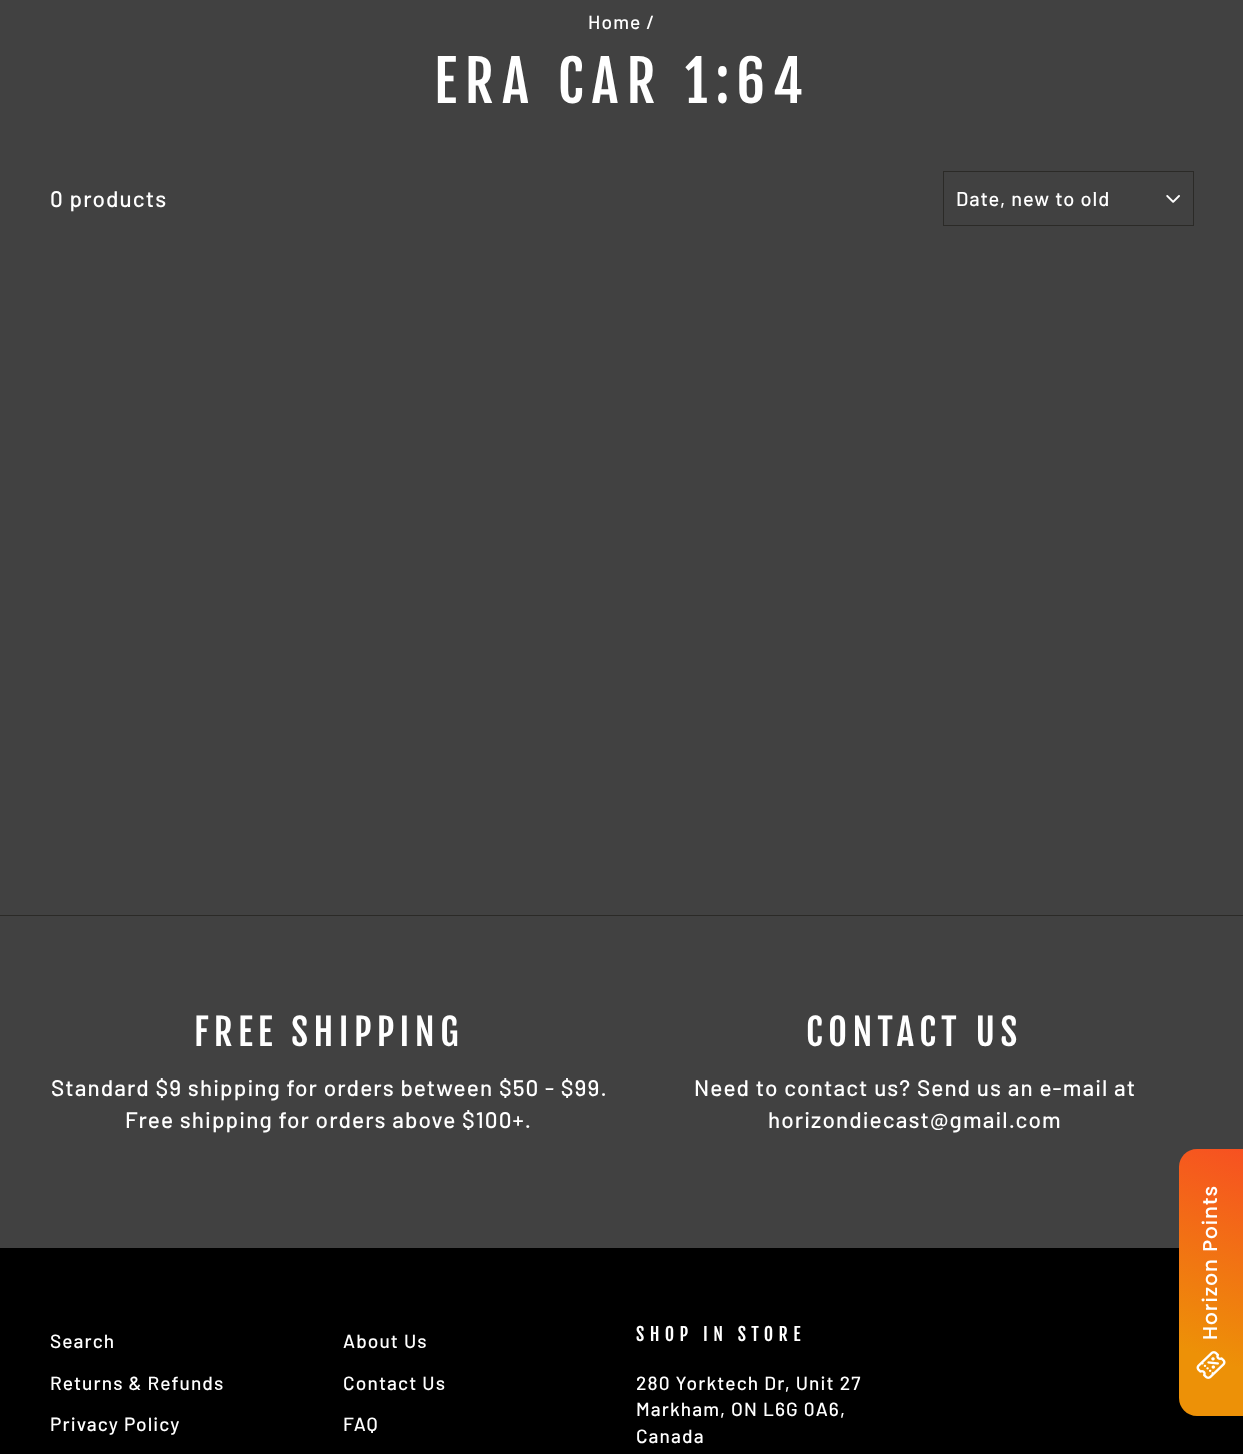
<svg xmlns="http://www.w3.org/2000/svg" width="1243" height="1454">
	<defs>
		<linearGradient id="g1" gradientUnits="userSpaceOnUse" x1="1165" y1="1412" x2="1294" y2="1050"><stop offset="0.17" stop-color="#ED9107" /><stop offset="1" stop-color="#FC2F2F" /></linearGradient>
	</defs>
	<rect width="100%" height="100%" fill="#414141" />
	<text x="588" y="29" font-family="Barlow" font-size="19.1" font-weight="500" letter-spacing="1.12" fill="#FFFFFF">Home /</text>
	<text x="434" y="103" font-family="Fjalla One" font-size="56.25" letter-spacing="8.5" fill="#FFFFFF">ERA CAR 1:64</text>
	<text x="50" y="207" font-family="Barlow" font-size="22.5" font-weight="500" letter-spacing="1.12" fill="#FFFFFF">0 products</text>
	<image x="1166" y="195" width="14" height="8" href="assets/img1.png" />
	<rect x="943.5" y="171.5" width="250" height="54" fill="none" stroke="#2B2A27" />
	<text x="956" y="206" font-family="Barlow" font-size="20" font-weight="500" letter-spacing="1" fill="#FFFFFF">Date, new to old</text>
	<rect x="0" y="915" width="1243" height="1" fill="#2B2A27" />
	<text x="194" y="1046" font-family="Fjalla One" font-size="36.5" letter-spacing="5.5" fill="#FFFFFF">FREE SHIPPING</text>
	<g font-family="Barlow" font-size="22.5" font-weight="500" letter-spacing="1.12" fill="#FFFFFF">
		<text x="51" y="1096">Standard $9 shipping for orders between $50 - $99.</text>
		<text x="125" y="1128">Free shipping for orders above $100+.</text>
	</g>
	<text x="806" y="1046" font-family="Fjalla One" font-size="36.5" letter-spacing="5.5" fill="#FFFFFF">CONTACT US</text>
	<g font-family="Barlow" font-size="22.5" font-weight="500" letter-spacing="1.12" fill="#FFFFFF">
		<text x="694" y="1096">Need to contact us? Send us an e-mail at</text>
		<text x="768" y="1128">horizondiecast@gmail.com</text>
	</g>
	<rect x="0" y="1248" width="1243" height="206" fill="#000000" />
	<g font-family="Barlow" font-size="19.1" font-weight="500" letter-spacing="1.12" fill="#FFFFFF">
		<text x="50" y="1348">Search</text>
		<text x="50" y="1390">Returns &amp; Refunds</text>
		<text x="50" y="1431">Privacy Policy</text>
		<text x="343" y="1348">About Us</text>
		<text x="343" y="1390">Contact Us</text>
		<text x="343" y="1431">FAQ</text>
	</g>
	<text x="636" y="1341" font-family="Fjalla One" font-size="18" letter-spacing="5.4" fill="#FFFFFF">SHOP IN STORE</text>
	<g font-family="Barlow" font-size="19.1" font-weight="500" letter-spacing="1.12" fill="#FFFFFF">
		<text x="636" y="1390">280 Yorktech Dr, Unit 27</text>
		<text x="636" y="1416">Markham, ON L6G 0A6,</text>
		<text x="636" y="1443">Canada</text>
	</g>
	<path d="M1179 1398V1167C1179 1157 1187 1149 1197 1149H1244V1416H1197C1187 1416 1179 1408 1179 1398Z" fill="url(#g1)" />
	<text x="1217" y="1340" transform="rotate(-90 1217 1340)" font-family="Poppins" font-size="20" font-weight="500" letter-spacing="1" fill="#FFFFFF">Horizon Points</text>
	<image x="1196" y="1351" width="30" height="28" href="assets/img2.png" />
</svg>
